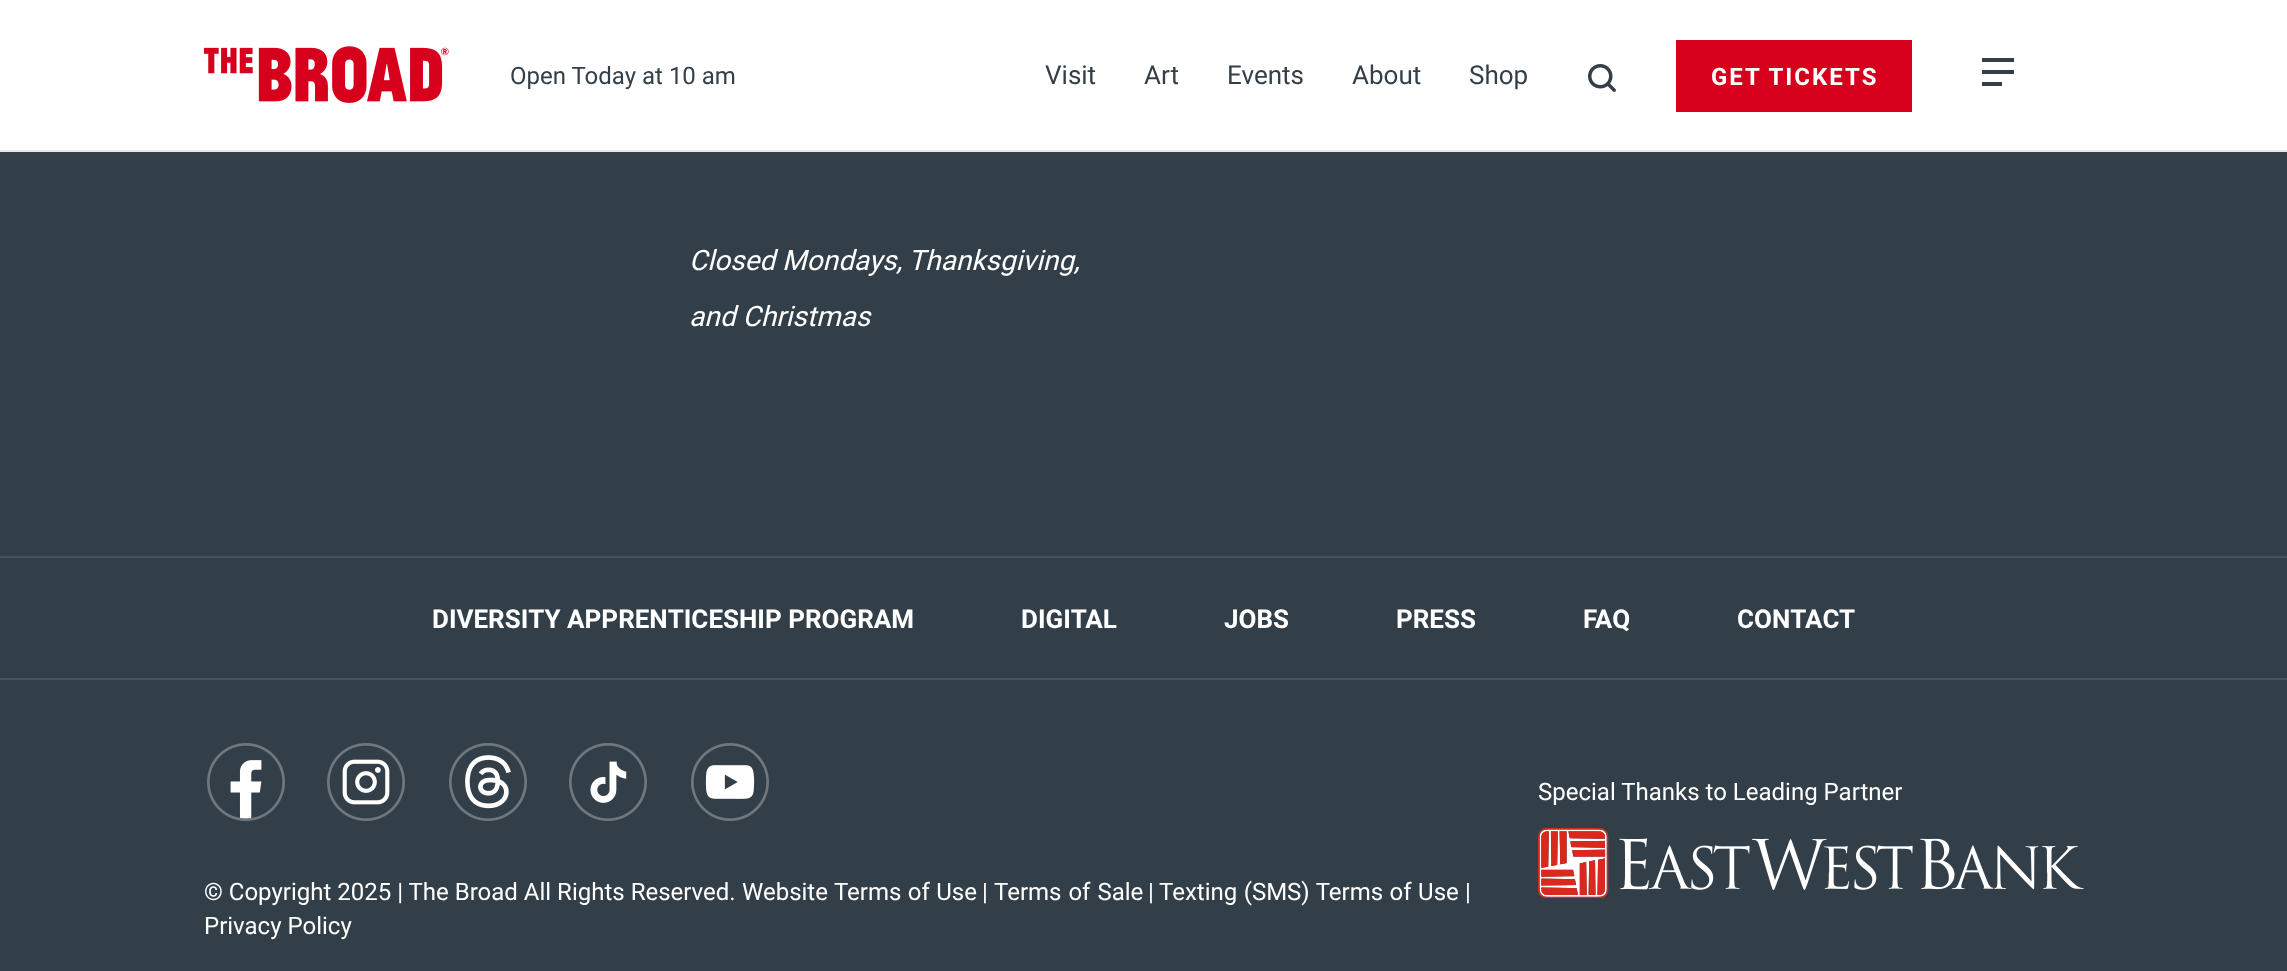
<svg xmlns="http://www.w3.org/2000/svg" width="2287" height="971">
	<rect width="100%" height="100%" fill="#333F48" />
	<rect x="0" y="0" width="2287" height="150" fill="#FFFFFF" />
	<rect x="0" y="150" width="2287" height="2" fill="#E5E7E8" />
	<image x="204" y="46" width="245" height="57" href="assets/img1.png" />
	<text x="510" y="84" font-family="Roboto" font-size="24" fill="#333F48">Open Today at 10 am</text>
	<g font-family="Roboto" font-size="26" fill="#333F48">
		<text x="1045" y="84">Visit</text>
		<text x="1144" y="84">Art</text>
		<text x="1227" y="84">Events</text>
		<text x="1352" y="84">About</text>
		<text x="1469" y="84">Shop</text>
	</g>
	<image x="1588" y="64" width="28" height="28" href="assets/img2.png" />
	<rect x="1676" y="40" width="236" height="72" fill="#D6001C" />
	<text x="1711" y="85" font-family="Roboto" font-size="24" font-weight="700" letter-spacing="2" fill="#FFFFFF">GET TICKETS</text>
	<image x="1982" y="58" width="32" height="28" href="assets/img3.png" />
	<g font-family="Roboto" font-size="28" font-style="italic" fill="#FFFFFF">
		<text x="689" y="270">Closed Mondays, Thanksgiving,</text>
		<text x="689" y="326">and Christmas</text>
	</g>
	<rect x="0" y="556" width="2287" height="2" fill="#47525A" />
	<rect x="0" y="678" width="2287" height="2" fill="#47525A" />
	<g font-family="Roboto" font-size="26" font-weight="700" fill="#FFFFFF">
		<text x="432" y="628">DIVERSITY APPRENTICESHIP PROGRAM</text>
		<text x="1021" y="628">DIGITAL</text>
		<text x="1224" y="628">JOBS</text>
		<text x="1396" y="628">PRESS</text>
		<text x="1583" y="628">FAQ</text>
		<text x="1737" y="628">CONTACT</text>
	</g>
	<text x="1538" y="800" font-family="Roboto" font-size="24" fill="#FFFFFF">Special Thanks to Leading Partner</text>
	<image x="1538" y="828" width="546" height="70" href="assets/img4.png" />
	<image x="207" y="743" width="78" height="78" href="assets/img5.png" />
	<image x="327" y="743" width="78" height="78" href="assets/img6.png" />
	<image x="449" y="743" width="78" height="78" href="assets/img7.png" />
	<image x="569" y="743" width="78" height="78" href="assets/img8.png" />
	<image x="691" y="743" width="78" height="78" href="assets/img9.png" />
	<g font-family="Roboto" font-size="24" fill="#FFFFFF">
		<text x="204" y="900">© Copyright 2025 | The Broad All Rights Reserved.</text>
		<text x="742" y="900" word-spacing="0.5">Website Terms of Use</text>
		<text x="982" y="900">|</text>
		<text x="994" y="900" word-spacing="1">Terms of Sale</text>
		<text x="1148" y="900">|</text>
		<text x="1159" y="900" word-spacing="0.5">Texting (SMS) Terms of Use</text>
		<text x="1465" y="900">|</text>
		<text x="204" y="934">Privacy Policy</text>
	</g>
</svg>
